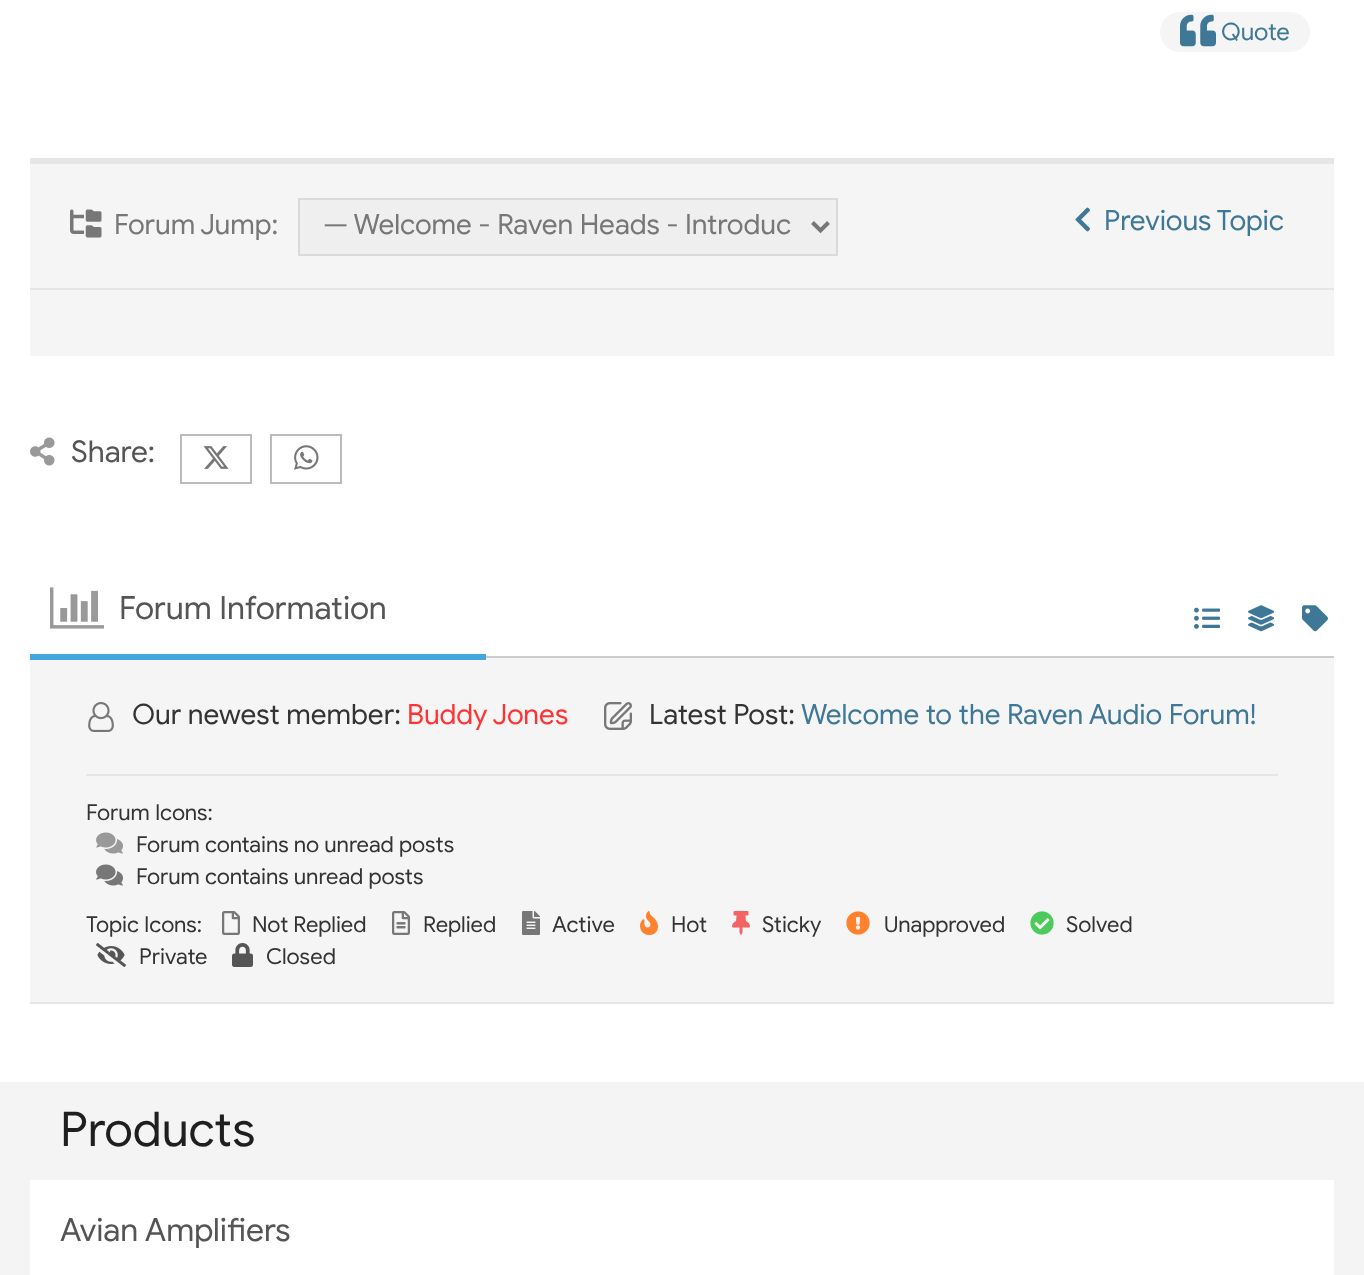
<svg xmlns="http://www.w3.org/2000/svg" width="1364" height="1275">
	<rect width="100%" height="100%" fill="#FFFFFF" />
	<rect x="1160" y="12" width="150" height="40" rx="20" fill="#F5F5F5" />
	<image x="1180" y="14" width="36" height="33" href="assets/img1.png" />
	<text x="1221" y="40" font-family="Google Sans" font-size="24" fill="#3F7796">Quote</text>
	<rect x="30" y="164" width="1304" height="192" fill="#F5F5F5" />
	<rect x="30" y="158" width="1304" height="6" fill="#E6E6E6" />
	<image x="70" y="209" width="32" height="29" href="assets/img2.png" />
	<text x="114" y="234" font-family="Google Sans" font-size="28" fill="#777777">Forum Jump:</text>
	<rect x="299" y="199" width="538" height="56" fill="#EFEFEF" stroke="#DADADA" stroke-width="2" />
	<path d="M812.5 222.5L820.5 230.5L828.5 222.5" fill="none" stroke="#777777" stroke-width="4" />
	<text x="323" y="234" font-family="Google Sans" font-size="28" fill="#777777">— Welcome - Raven Heads - Introduc</text>
	<image x="1075" y="207" width="15" height="25" href="assets/img3.png" />
	<text x="1104" y="230" font-family="Google Sans" font-size="28" fill="#3F7796">Previous Topic</text>
	<rect x="30" y="288" width="1304" height="2" fill="#E6E6E6" />
	<image x="30" y="437" width="25" height="29" href="assets/img4.png" />
	<text x="71" y="462" font-family="Google Sans" font-size="30" fill="#555555">Share:</text>
	<rect x="181" y="435" width="70" height="48" fill="none" stroke="#BBBBBB" stroke-width="2" />
	<image x="203" y="446" width="26" height="23" href="assets/img5.png" />
	<rect x="271" y="435" width="70" height="48" fill="none" stroke="#BBBBBB" stroke-width="2" />
	<image x="294" y="445" width="25" height="25" href="assets/img6.png" />
	<rect x="486" y="656" width="848" height="2" fill="#CCCCCC" />
	<rect x="30" y="658" width="1304" height="344" fill="#F5F5F5" />
	<rect x="30" y="654" width="456" height="6" fill="#43A6DF" />
	<image x="50" y="587" width="54" height="42" href="assets/img7.png" />
	<text x="119" y="619" font-family="Google Sans" font-size="32" fill="#555555">Forum Information</text>
	<image x="1194" y="607" width="26" height="22" href="assets/img8.png" />
	<image x="1248" y="605" width="26" height="27" href="assets/img9.png" />
	<image x="1302" y="605" width="26" height="27" href="assets/img10.png" />
	<image x="88" y="702" width="26" height="30" href="assets/img11.png" />
	<text x="132" y="724" font-family="Google Sans" font-size="28" fill="#333333">Our newest member:</text>
	<text x="407" y="724" font-family="Google Sans" font-size="28" fill="#FF3333">Buddy Jones</text>
	<image x="604" y="702" width="28" height="28" href="assets/img12.png" />
	<text x="649" y="724" font-family="Google Sans" font-size="28" fill="#333333">Latest Post:</text>
	<text x="801" y="724" font-family="Google Sans" font-size="28" fill="#3F7796">Welcome to the Raven Audio Forum!</text>
	<rect x="86" y="774" width="1192" height="2" fill="#E6E6E6" />
	<text x="86" y="820" font-family="Google Sans" font-size="22" fill="#333333">Forum Icons:</text>
	<image x="96" y="832" width="27" height="22" href="assets/img13.png" />
	<text x="136" y="852" font-family="Google Sans" font-size="22" fill="#333333">Forum contains no unread posts</text>
	<image x="96" y="864" width="27" height="22" href="assets/img14.png" />
	<g font-family="Google Sans" font-size="22" fill="#333333">
		<text x="136" y="884">Forum contains unread posts</text>
		<text x="86" y="932">Topic Icons:</text>
	</g>
	<image x="222" y="911" width="18" height="24" href="assets/img15.png" />
	<text x="252" y="932" font-family="Google Sans" font-size="22" fill="#333333">Not Replied</text>
	<image x="392" y="911" width="18" height="24" href="assets/img16.png" />
	<text x="423" y="932" font-family="Google Sans" font-size="22" fill="#333333">Replied</text>
	<image x="522" y="911" width="18" height="24" href="assets/img17.png" />
	<text x="552" y="932" font-family="Google Sans" font-size="22" fill="#333333">Active</text>
	<image x="640" y="911" width="18" height="24" href="assets/img18.png" />
	<text x="671" y="932" font-family="Google Sans" font-size="22" fill="#333333">Hot</text>
	<image x="732" y="911" width="18" height="24" href="assets/img19.png" />
	<text x="762" y="932" font-family="Google Sans" font-size="22" fill="#333333">Sticky</text>
	<image x="846" y="911" width="24" height="24" href="assets/img20.png" />
	<text x="884" y="932" font-family="Google Sans" font-size="22" fill="#333333">Unapproved</text>
	<image x="1030" y="911" width="24" height="24" href="assets/img21.png" />
	<text x="1066" y="932" font-family="Google Sans" font-size="22" fill="#333333">Solved</text>
	<image x="96" y="943" width="30" height="24" href="assets/img22.png" />
	<text x="139" y="964" font-family="Google Sans" font-size="22" fill="#333333">Private</text>
	<image x="232" y="943" width="21" height="24" href="assets/img23.png" />
	<text x="266" y="964" font-family="Google Sans" font-size="22" fill="#333333">Closed</text>
	<rect x="30" y="1002" width="1304" height="2" fill="#E6E6E6" />
	<rect x="0" y="1082" width="1364" height="193" fill="#F4F4F4" />
	<text x="60" y="1146" font-family="Google Sans" font-size="48" fill="#1F1F1F">Products</text>
	<rect x="30" y="1180" width="1304" height="95" fill="#FFFFFF" />
	<text x="60" y="1241" font-family="Google Sans" font-size="32" fill="#555555">Avian Amplifiers</text>
</svg>
